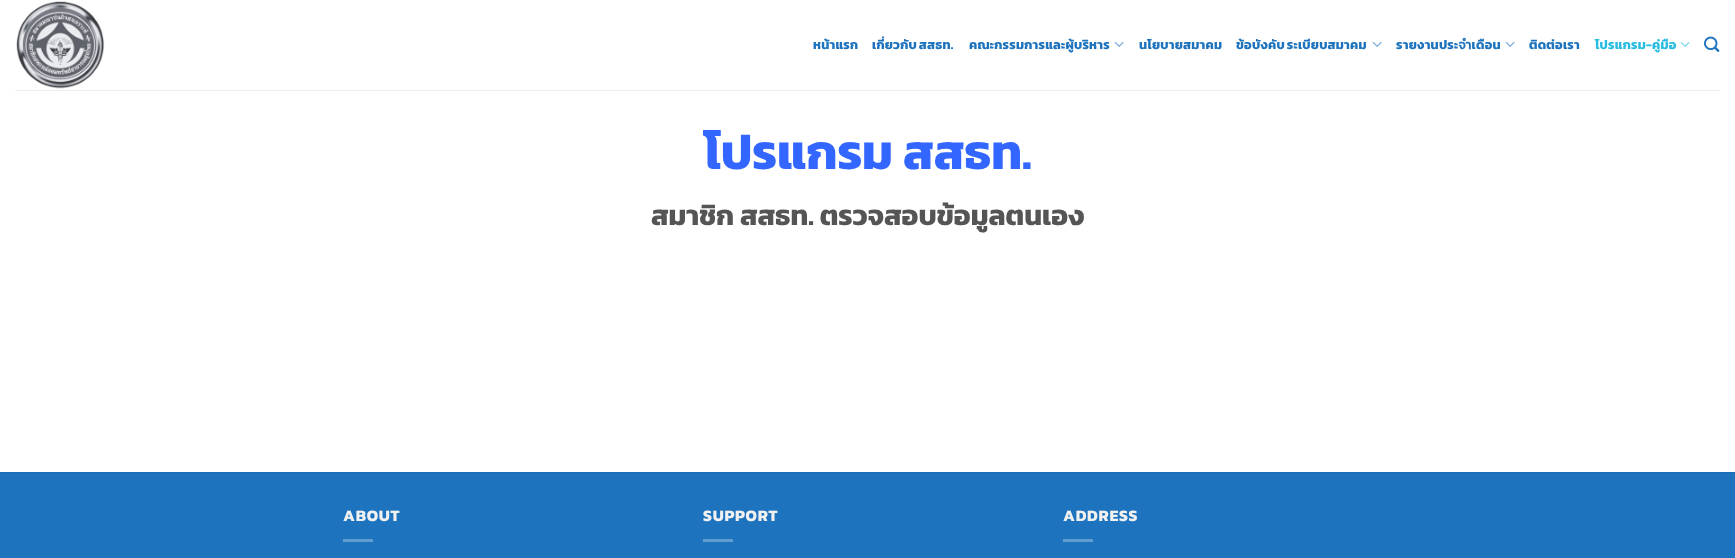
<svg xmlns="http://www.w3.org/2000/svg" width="1735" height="558">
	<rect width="100%" height="100%" fill="#FFFFFF" />
	<image x="16" y="1" width="89" height="88" href="assets/img1.png" />
	<g font-family="Kanit" font-size="12.75" font-weight="700" letter-spacing="0.25" fill="#1E73BE">
		<text x="813" y="49">หน้าแรก</text>
		<text x="872" y="49" word-spacing="-1">เกี่ยวกับ สสธท.</text>
		<text x="969" y="49">คณะกรรมการและผู้บริหาร</text>
	</g>
	<image x="1114" y="41" width="10" height="6" href="assets/img2.png" />
	<g font-family="Kanit" font-size="12.75" font-weight="700" letter-spacing="0.25" fill="#1E73BE">
		<text x="1139" y="49">นโยบายสมาคม</text>
		<text x="1236" y="49" word-spacing="-1">ข้อบังคับ ระเบียบสมาคม</text>
	</g>
	<image x="1372" y="41" width="10" height="6" href="assets/img2.png" />
	<text x="1396" y="49" font-family="Kanit" font-size="12.75" font-weight="700" letter-spacing="0.25" fill="#1E73BE">รายงานประจำเดือน</text>
	<image x="1505" y="41" width="10" height="6" href="assets/img2.png" />
	<text x="1529" y="49" font-family="Kanit" font-size="12.75" font-weight="700" letter-spacing="0.25" fill="#1E73BE">ติดต่อเรา</text>
	<text x="1595" y="49" font-family="Kanit" font-size="12.75" font-weight="700" letter-spacing="0.25" fill="#27BCE1">โปรแกรม-คู่มือ</text>
	<image x="1680" y="41" width="10" height="6" href="assets/img3.png" />
	<image x="1704" y="36" width="16" height="16" href="assets/img4.png" />
	<rect x="15" y="90" width="1705" height="1" fill="#EDEDED" />
	<text x="704" y="169" font-family="Kanit" font-size="49" font-weight="700" fill="#3366FF">โปรแกรม สสธท.</text>
	<text x="651" y="225" font-family="Kanit" font-size="28.2" font-weight="700" fill="#555555">สมาชิก สสธท. ตรวจสอบข้อมูลตนเอง</text>
	<rect x="0" y="473" width="1735" height="85" fill="#1E73BE" />
	<rect x="0" y="472" width="1735" height="1" fill="#1D6DB5" />
	<text x="343" y="521" font-family="Kanit" font-size="16" font-weight="700" letter-spacing="0.75" fill="#F1F1F1">ABOUT</text>
	<rect x="343" y="539" width="30" height="3" fill="#629DD2" />
	<text x="703" y="521" font-family="Kanit" font-size="16" font-weight="700" letter-spacing="0.75" fill="#F1F1F1">SUPPORT</text>
	<rect x="703" y="539" width="30" height="3" fill="#629DD2" />
	<text x="1063" y="521" font-family="Kanit" font-size="16" font-weight="700" letter-spacing="0.75" fill="#F1F1F1">ADDRESS</text>
	<rect x="1063" y="539" width="30" height="3" fill="#629DD2" />
</svg>
